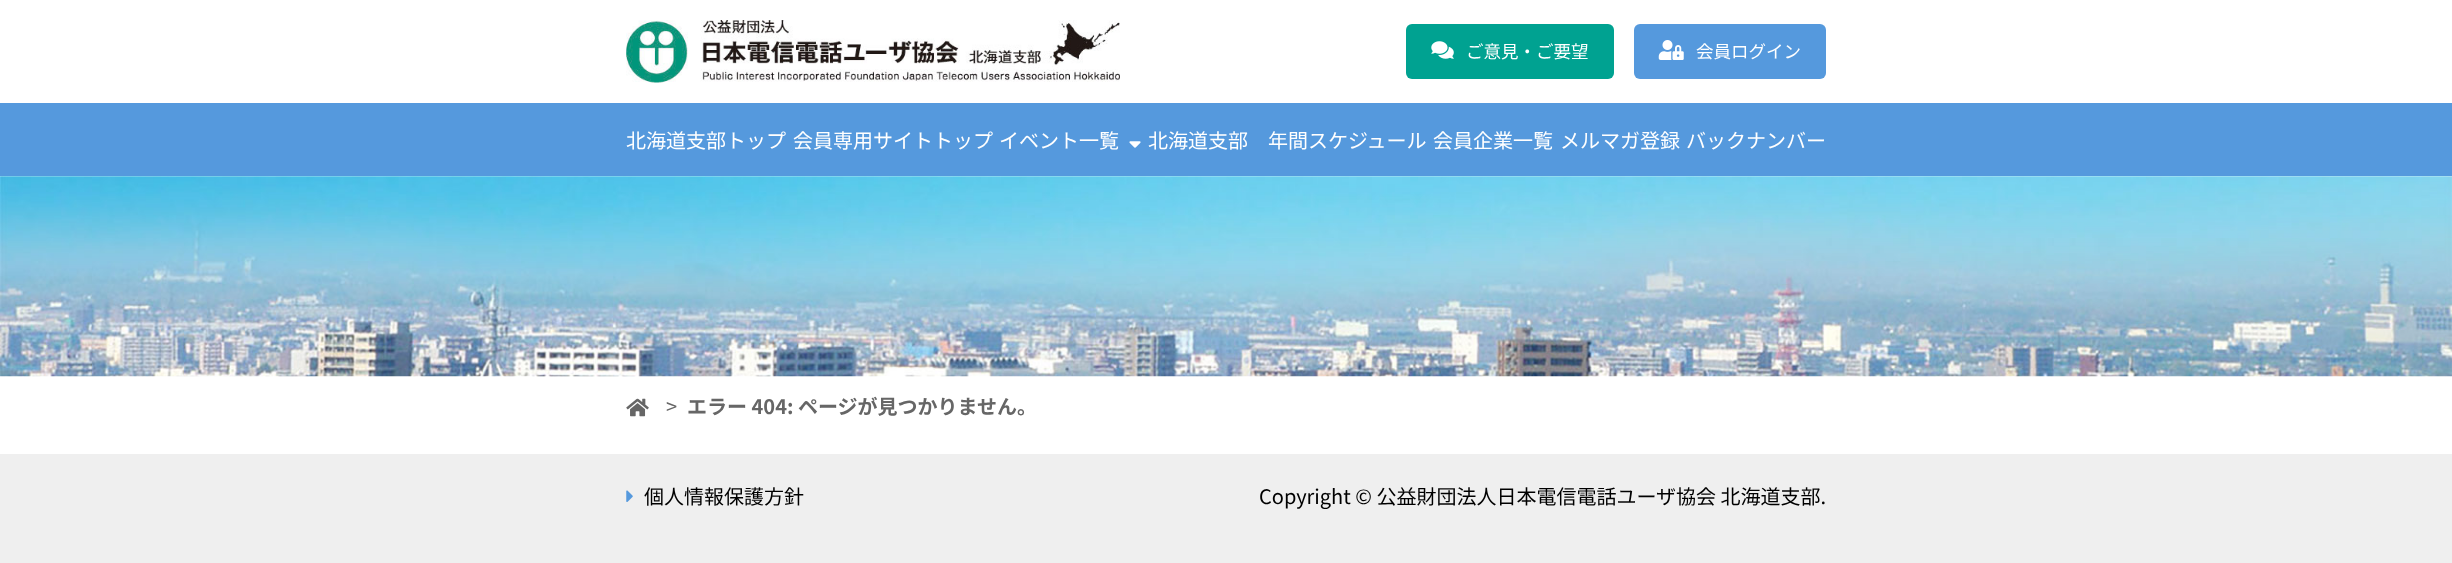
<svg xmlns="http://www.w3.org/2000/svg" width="2452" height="563">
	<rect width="100%" height="100%" fill="#FFFFFF" />
	<image x="626" y="20" width="494" height="63" href="assets/img1.png" />
	<rect x="1406" y="24" width="208" height="55" rx="6" fill="#00A291" />
	<image x="1431" y="41" width="23" height="18" href="assets/img2.png" />
	<text x="1466" y="58" font-family="Noto Sans JP" font-size="17.5" fill="#FFFFFF">ご意見・ご要望</text>
	<rect x="1634" y="24" width="192" height="55" rx="6" fill="#5599DD" />
	<image x="1658" y="40" width="26" height="20" href="assets/img3.png" />
	<text x="1696" y="58" font-family="Noto Sans JP" font-size="17.5" fill="#FFFFFF">会員ログイン</text>
	<rect x="0" y="103" width="2452" height="73" fill="#5599DD" />
	<g font-family="Noto Sans JP" font-size="20" fill="#FFFFFF">
		<text x="626" y="148">北海道支部トップ</text>
		<text x="793" y="148">会員専用サイトトップ</text>
		<text x="999" y="148">イベント一覧</text>
	</g>
	<image x="1129" y="141" width="12" height="7" href="assets/img4.png" />
	<g font-family="Noto Sans JP" font-size="20" fill="#FFFFFF">
		<text x="1148" y="148">北海道支部　年間スケジュール</text>
		<text x="1433" y="148">会員企業一覧</text>
		<text x="1560" y="148">メルマガ登録</text>
		<text x="1686" y="148">バックナンバー</text>
	</g>
	<image x="0" y="176" width="2452" height="201" href="assets/img5.png" />
	<image x="626" y="398" width="23" height="19" href="assets/img6.png" />
	<text x="666" y="414" font-family="Noto Sans JP" font-size="20" fill="#666666">&gt;</text>
	<text x="687" y="414" font-family="Noto Sans JP" font-size="20" font-weight="700" fill="#666666">エラー 404: ページが見つかりません。</text>
	<rect x="0" y="454" width="2452" height="109" fill="#EFEFEF" />
	<image x="626" y="490" width="7" height="12" href="assets/img7.png" />
	<g font-family="Noto Sans JP" font-size="20" fill="#000000">
		<text x="644" y="504">個人情報保護方針</text>
		<text x="1259" y="504">Copyright © 公益財団法人日本電信電話ユーザ協会 北海道支部.</text>
	</g>
</svg>
